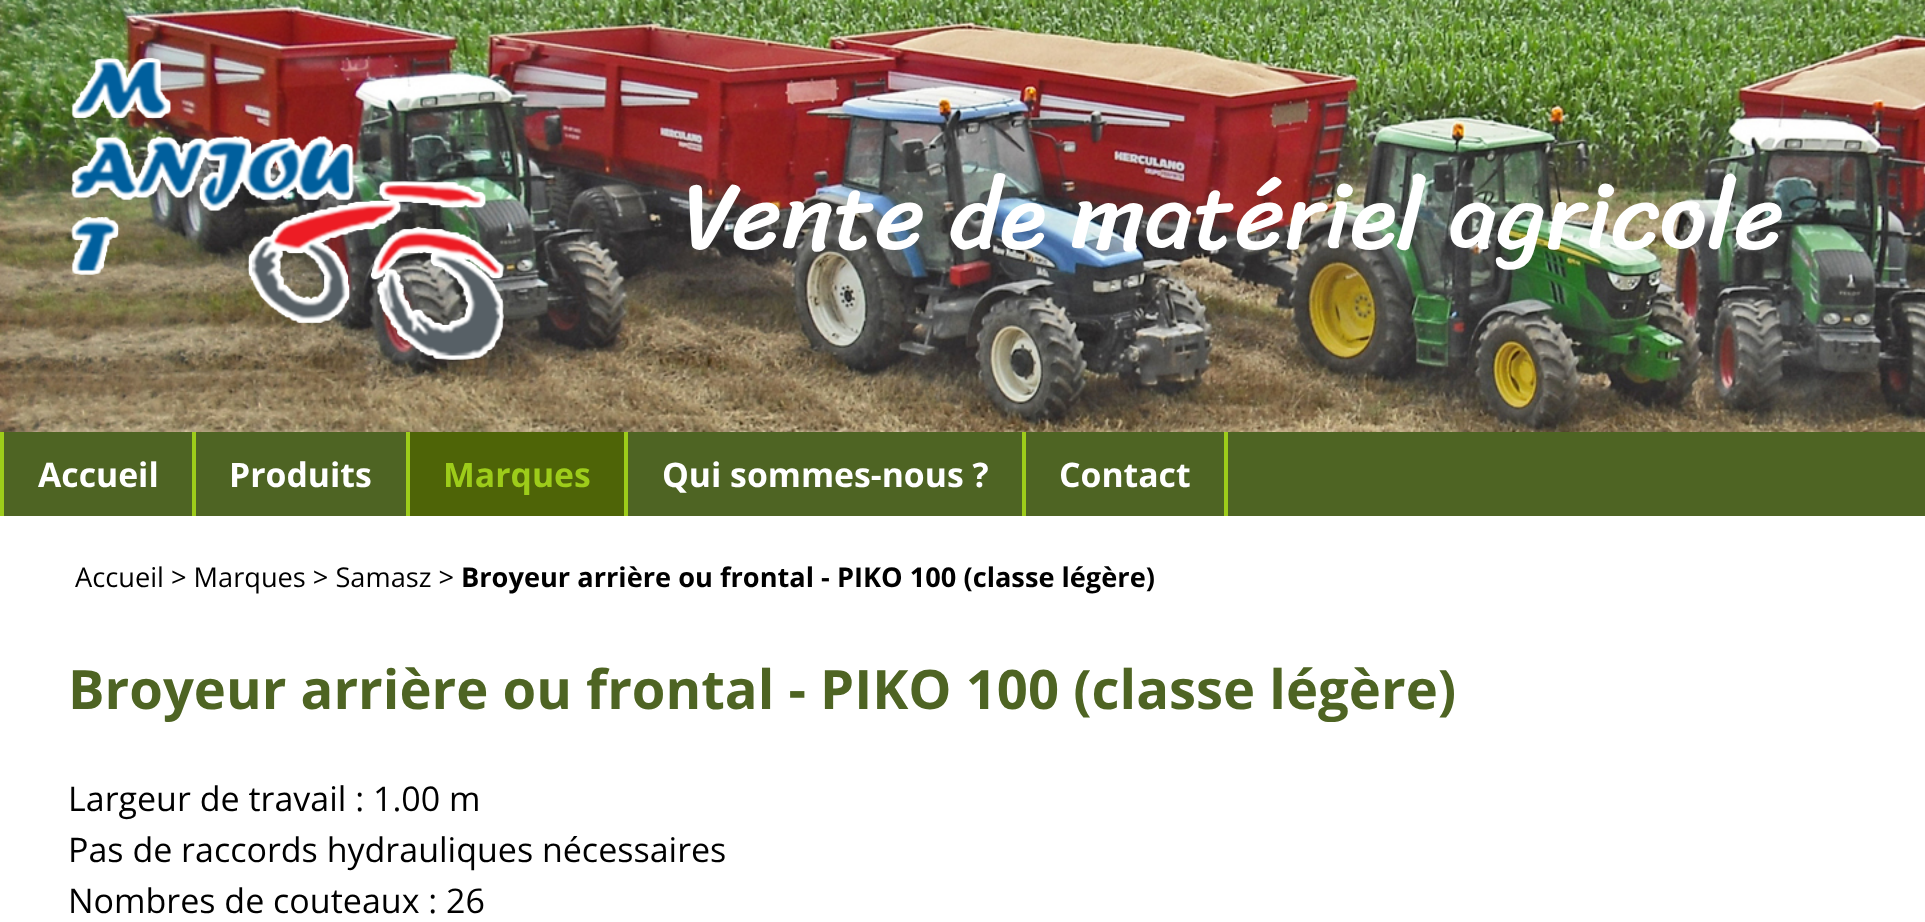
<svg xmlns="http://www.w3.org/2000/svg" width="1925" height="922">
	<rect width="100%" height="100%" fill="#FFFFFF" />
	<image x="0" y="0" width="1925" height="432" href="assets/img1.png" />
	<image x="71" y="58" width="433" height="302" href="assets/img2.png" />
	<text x="683" y="248" font-family="Sriracha" font-size="96" fill="#FFFFFF">Vente de matériel agricole</text>
	<rect x="4" y="432" width="1921" height="84" fill="#4E6423" />
	<rect x="0" y="432" width="4" height="84" fill="#9DCC1A" />
	<text x="38" y="487" font-family="Open Sans" font-size="33.75" font-weight="700" fill="#FFFFFF">Accueil</text>
	<rect x="192" y="432" width="4" height="84" fill="#9DCC1A" />
	<text x="229" y="487" font-family="Open Sans" font-size="33.75" font-weight="700" fill="#FFFFFF">Produits</text>
	<rect x="410" y="432" width="214" height="84" fill="#4E6407" />
	<rect x="406" y="432" width="4" height="84" fill="#9DCC1A" />
	<text x="443" y="487" font-family="Open Sans" font-size="33.75" font-weight="700" fill="#9DCC1A">Marques</text>
	<rect x="624" y="432" width="4" height="84" fill="#9DCC1A" />
	<text x="662" y="487" font-family="Open Sans" font-size="33.75" font-weight="700" fill="#FFFFFF">Qui sommes-nous ?</text>
	<rect x="1224" y="432" width="4" height="84" fill="#9DCC1A" />
	<rect x="1022" y="432" width="4" height="84" fill="#9DCC1A" />
	<text x="1059" y="487" font-family="Open Sans" font-size="33.75" font-weight="700" fill="#FFFFFF">Contact</text>
	<text x="75" y="587" font-family="Open Sans" font-size="27.2" fill="#000000">Accueil &gt; Marques &gt; Samasz &gt;</text>
	<text x="461" y="587" font-family="Open Sans" font-size="27.2" font-weight="700" fill="#000000">Broyeur arrière ou frontal - PIKO 100 (classe légère)</text>
	<text x="68" y="709" font-family="Open Sans" font-size="54.4" font-weight="700" fill="#4E6423">Broyeur arrière ou frontal - PIKO 100 (classe légère)</text>
	<g font-family="Open Sans" font-size="34" fill="#000000">
		<text x="68" y="811">Largeur de travail : 1.00 m</text>
		<text x="68" y="862">Pas de raccords hydrauliques nécessaires</text>
		<text x="68" y="913">Nombres de couteaux : 26</text>
	</g>
</svg>
